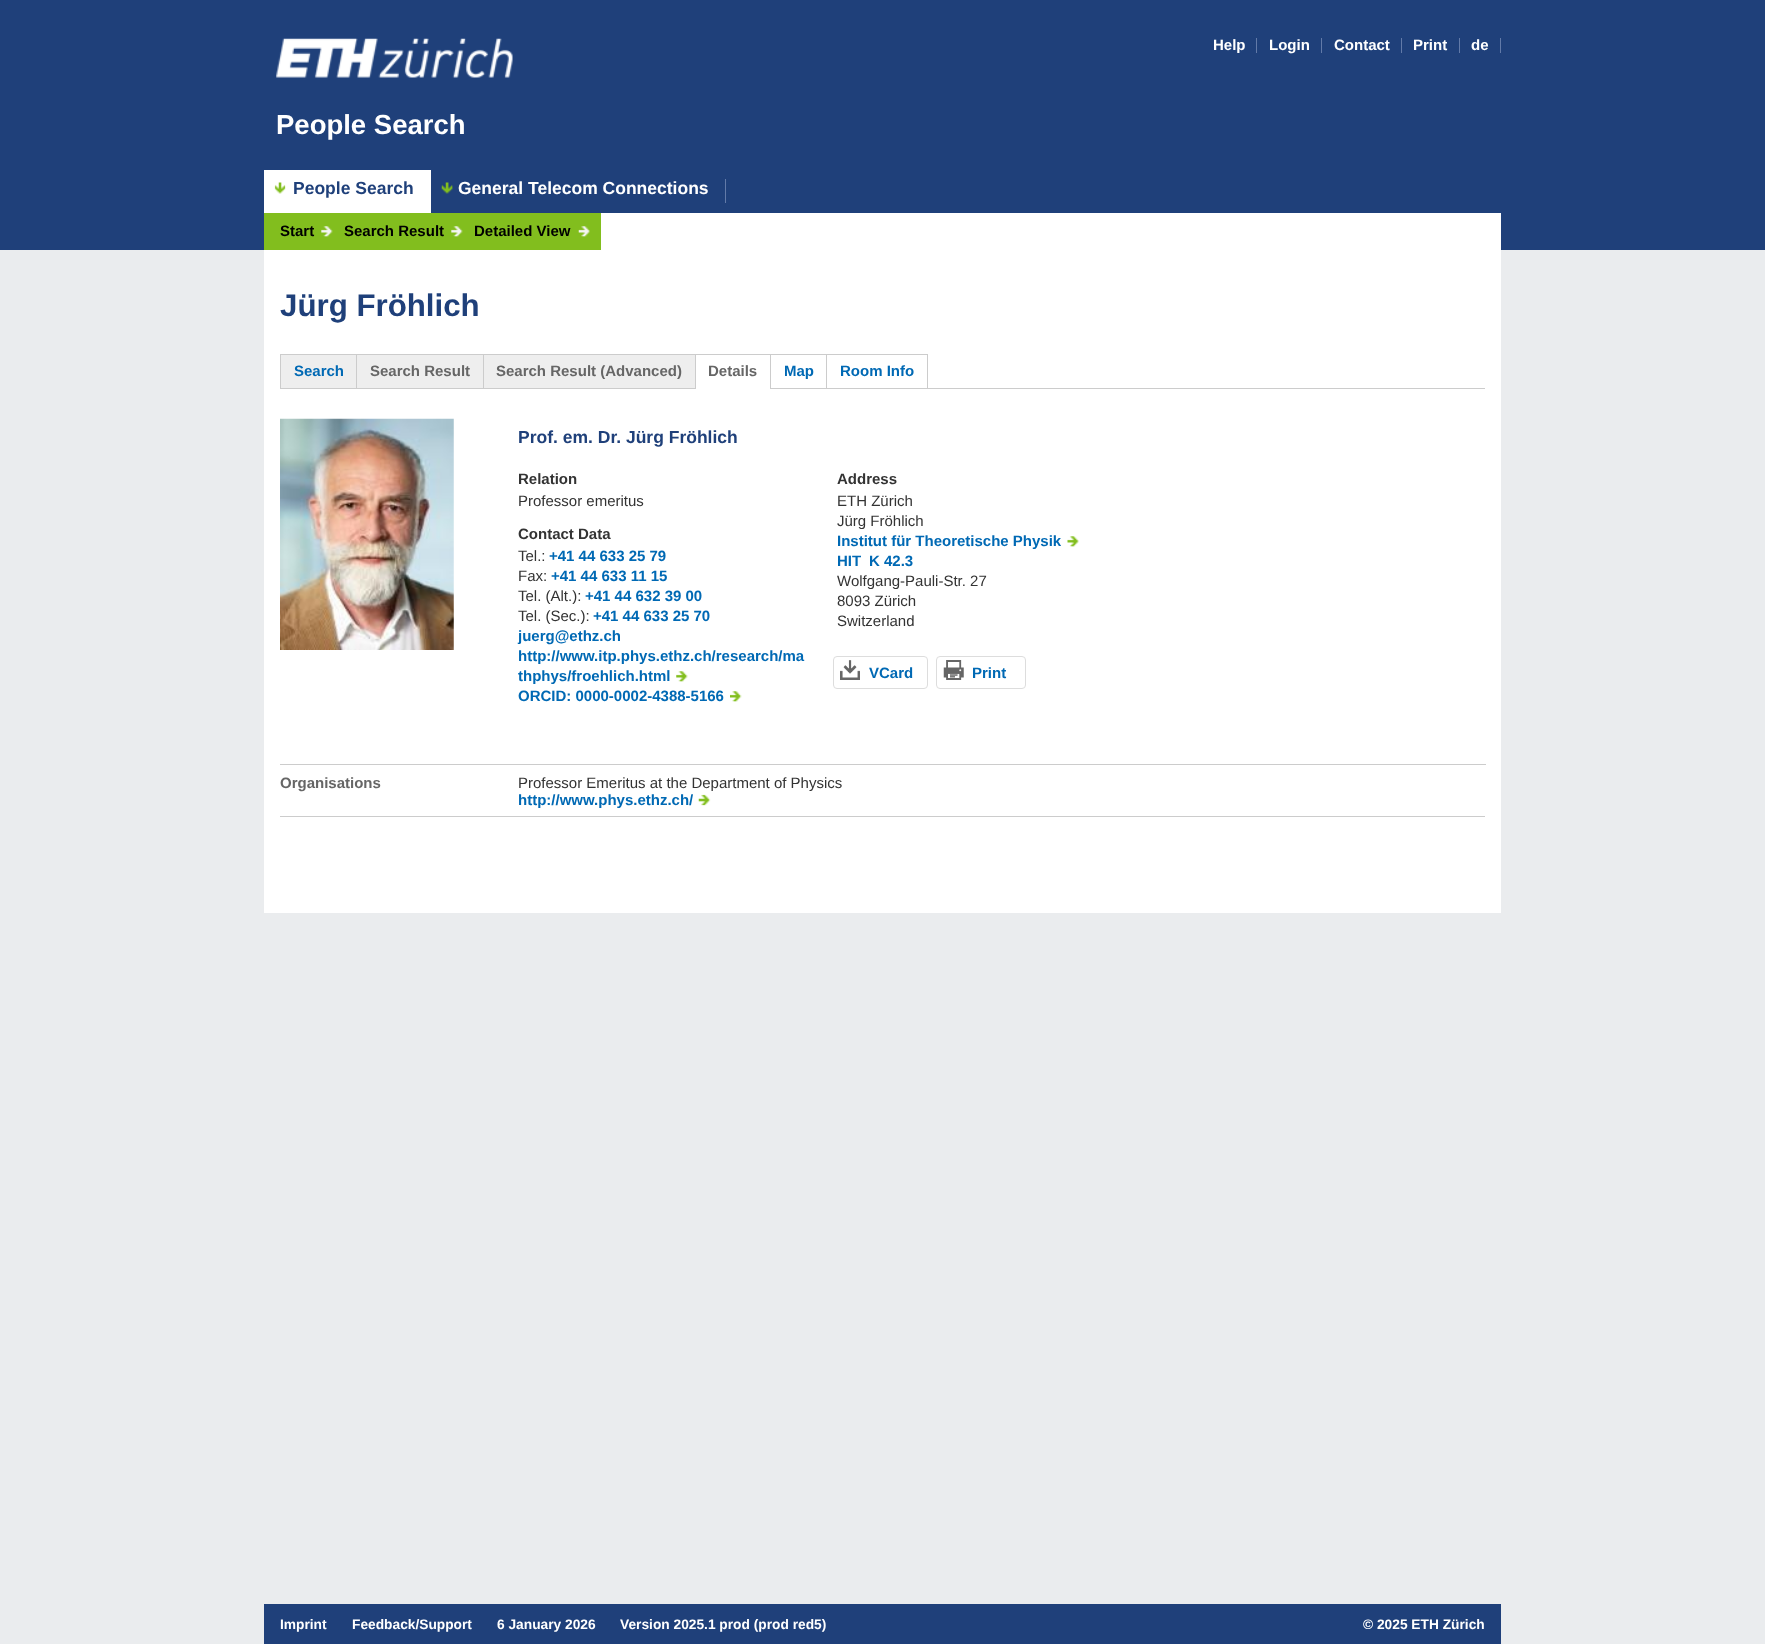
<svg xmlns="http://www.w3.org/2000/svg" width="1765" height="1644">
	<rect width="100%" height="100%" fill="#EAECEE" />
	<rect x="0" y="0" width="1765" height="250" fill="#1F407A" />
	<image x="276" y="38" width="237" height="40" href="assets/img1.png" />
	<rect x="1256" y="38" width="1" height="15" fill="#627AA8" />
	<text x="1213" y="50" font-family="Liberation Sans" font-size="15" font-weight="700" fill="#FFFFFF">Help</text>
	<rect x="1321" y="38" width="1" height="15" fill="#627AA8" />
	<text x="1269" y="50" font-family="Liberation Sans" font-size="15" font-weight="700" fill="#FFFFFF">Login</text>
	<rect x="1401" y="38" width="1" height="15" fill="#627AA8" />
	<text x="1334" y="50" font-family="Liberation Sans" font-size="15" font-weight="700" fill="#FFFFFF">Contact</text>
	<rect x="1459" y="38" width="1" height="15" fill="#627AA8" />
	<text x="1413" y="50" font-family="Liberation Sans" font-size="15" font-weight="700" fill="#FFFFFF">Print</text>
	<rect x="1500" y="38" width="1" height="15" fill="#627AA8" />
	<text x="1471" y="50" font-family="Liberation Sans" font-size="15" font-weight="700" fill="#FFFFFF">de</text>
	<text x="276" y="134" font-family="Liberation Sans" font-size="27.5" font-weight="700" fill="#FFFFFF">People Search</text>
	<rect x="264" y="170" width="167" height="43" fill="#FFFFFF" />
	<image x="274" y="182" width="12" height="12" href="assets/img2.png" />
	<text x="293" y="194" font-family="Liberation Sans" font-size="17.5" font-weight="700" fill="#1F407A">People Search</text>
	<image x="441" y="182" width="12" height="12" href="assets/img3.png" />
	<rect x="725" y="179" width="1" height="24" fill="#627AA8" />
	<text x="458" y="194" font-family="Liberation Sans" font-size="17.5" font-weight="700" fill="#FFFFFF">General Telecom Connections</text>
	<rect x="264" y="213" width="1237" height="700" fill="#FFFFFF" />
	<rect x="264" y="213" width="337" height="37" fill="#82BE1E" />
	<image x="321" y="226" width="12" height="11" href="assets/img4.png" />
	<text x="280" y="236" font-family="Liberation Sans" font-size="15" font-weight="700" fill="#000000">Start</text>
	<image x="451" y="226" width="12" height="11" href="assets/img4.png" />
	<text x="344" y="236" font-family="Liberation Sans" font-size="15" font-weight="700" fill="#000000">Search Result</text>
	<image x="578" y="226" width="12" height="11" href="assets/img5.png" />
	<text x="474" y="236" font-family="Liberation Sans" font-size="15" font-weight="700" fill="#000000">Detailed View</text>
	<text x="280" y="316" font-family="Liberation Sans" font-size="31.25" font-weight="700" fill="#1F407A">Jürg Fröhlich</text>
	<rect x="928" y="388" width="557" height="1" fill="#CCCCCC" />
	<rect x="281" y="355" width="75" height="33" fill="#EEEEEE" />
	<rect x="280.5" y="354.5" width="77" height="34" fill="none" stroke="#CCCCCC" />
	<text x="294" y="376" font-family="Liberation Sans" font-size="15" font-weight="700" fill="#0069B4">Search</text>
	<rect x="356.5" y="354.5" width="127" height="34" fill="#EEEEEE" stroke="#CCCCCC" />
	<text x="370" y="376" font-family="Liberation Sans" font-size="15" font-weight="700" fill="#666666">Search Result</text>
	<rect x="483.5" y="354.5" width="212" height="34" fill="#EEEEEE" stroke="#CCCCCC" />
	<text x="496" y="376" font-family="Liberation Sans" font-size="15" font-weight="700" fill="#666666">Search Result (Advanced)</text>
	<rect x="695" y="354" width="76" height="1" fill="#CCCCCC" />
	<rect x="695" y="388" width="1" height="1" fill="#FFFFFF" />
	<rect x="695" y="388" width="1" height="1" fill="#CCCCCC" />
	<text x="708" y="376" font-family="Liberation Sans" font-size="15" font-weight="700" fill="#666666">Details</text>
	<rect x="770.5" y="354.5" width="57" height="34" fill="none" stroke="#CCCCCC" />
	<text x="784" y="376" font-family="Liberation Sans" font-size="15" font-weight="700" fill="#0069B4">Map</text>
	<rect x="827" y="355" width="1" height="33" fill="#FFFFFF" />
	<rect x="826.5" y="354.5" width="101" height="34" fill="none" stroke="#CCCCCC" />
	<text x="840" y="376" font-family="Liberation Sans" font-size="15" font-weight="700" fill="#0069B4">Room Info</text>
	<rect x="280" y="816" width="1205" height="1" fill="#CCCCCC" />
	<image x="280" y="418" width="174" height="232" href="assets/img6.png" />
	<text x="518" y="443" font-family="Liberation Sans" font-size="17.5" font-weight="700" fill="#1F407A">Prof. em. Dr. Jürg Fröhlich</text>
	<text x="518" y="484" font-family="Liberation Sans" font-size="15" font-weight="700" fill="#333333">Relation</text>
	<text x="518" y="506" font-family="Liberation Sans" font-size="15" fill="#333333">Professor emeritus</text>
	<text x="518" y="539" font-family="Liberation Sans" font-size="15" font-weight="700" fill="#333333">Contact Data</text>
	<text x="518" y="561" font-family="Liberation Sans" font-size="15" fill="#333333">Tel.:</text>
	<text x="549" y="561" font-family="Liberation Sans" font-size="15" font-weight="700" fill="#0069B4">+41 44 633 25 79</text>
	<text x="518" y="581" font-family="Liberation Sans" font-size="15" fill="#333333">Fax:</text>
	<text x="551" y="581" font-family="Liberation Sans" font-size="15" font-weight="700" fill="#0069B4">+41 44 633 11 15</text>
	<text x="518" y="601" font-family="Liberation Sans" font-size="15" fill="#333333">Tel. (Alt.):</text>
	<text x="585" y="601" font-family="Liberation Sans" font-size="15" font-weight="700" fill="#0069B4">+41 44 632 39 00</text>
	<text x="518" y="621" font-family="Liberation Sans" font-size="15" fill="#333333">Tel. (Sec.):</text>
	<g font-family="Liberation Sans" font-size="15" font-weight="700" fill="#0069B4">
		<text x="593" y="621">+41 44 633 25 70</text>
		<text x="518" y="641">juerg@ethz.ch</text>
		<text x="518" y="661">http://www.itp.phys.ethz.ch/research/ma</text>
		<text x="518" y="681">thphys/froehlich.html</text>
	</g>
	<image x="676" y="671" width="12" height="11" href="assets/img7.png" />
	<text x="518" y="701" font-family="Liberation Sans" font-size="15" font-weight="700" fill="#0069B4">ORCID: 0000-0002-4388-5166</text>
	<image x="730" y="691" width="12" height="11" href="assets/img8.png" />
	<text x="837" y="484" font-family="Liberation Sans" font-size="15" font-weight="700" fill="#333333">Address</text>
	<g font-family="Liberation Sans" font-size="15" fill="#333333">
		<text x="837" y="506">ETH Zürich</text>
		<text x="837" y="526">Jürg Fröhlich</text>
	</g>
	<text x="837" y="546" font-family="Liberation Sans" font-size="15" font-weight="700" fill="#0069B4">Institut für Theoretische Physik</text>
	<image x="1067" y="536" width="12" height="11" href="assets/img9.png" />
	<g font-family="Liberation Sans" font-size="15" font-weight="700" fill="#0069B4">
		<text x="837" y="566">HIT</text>
		<text x="869" y="566">K 42.3</text>
	</g>
	<g font-family="Liberation Sans" font-size="15" fill="#333333">
		<text x="837" y="586">Wolfgang-Pauli-Str. 27</text>
		<text x="837" y="606">8093 Zürich</text>
		<text x="837" y="626">Switzerland</text>
	</g>
	<image x="840" y="660" width="20" height="20" href="assets/img10.png" />
	<rect x="833.5" y="656.5" width="94" height="32" rx="3.5" fill="none" stroke="#DDDDDD" />
	<text x="869" y="678" font-family="Liberation Sans" font-size="15" font-weight="700" fill="#0069B4">VCard</text>
	<image x="943" y="660" width="21" height="20" href="assets/img11.png" />
	<rect x="936.5" y="656.5" width="89" height="32" rx="3.5" fill="none" stroke="#DDDDDD" />
	<text x="972" y="678" font-family="Liberation Sans" font-size="15" font-weight="700" fill="#0069B4">Print</text>
	<text x="280" y="788" font-family="Liberation Sans" font-size="15" font-weight="700" fill="#666666">Organisations</text>
	<rect x="280" y="764" width="1206" height="1" fill="#CCCCCC" />
	<text x="518" y="788" font-family="Liberation Sans" font-size="15" fill="#333333">Professor Emeritus at the Department of Physics</text>
	<text x="518" y="805" font-family="Liberation Sans" font-size="15" font-weight="700" fill="#0069B4">http://www.phys.ethz.ch/</text>
	<image x="698" y="794" width="13" height="12" href="assets/img12.png" />
	<rect x="264" y="1604" width="1237" height="40" fill="#1F407A" />
	<g font-family="Liberation Sans" font-size="13.75" font-weight="700" fill="#FFFFFF">
		<text x="280" y="1629">Imprint</text>
		<text x="352" y="1629">Feedback/Support</text>
		<text x="497" y="1629">6 January 2026</text>
		<text x="620" y="1629">Version 2025.1 prod (prod red5)</text>
		<text x="1363" y="1629">© 2025 ETH Zürich</text>
	</g>
</svg>
